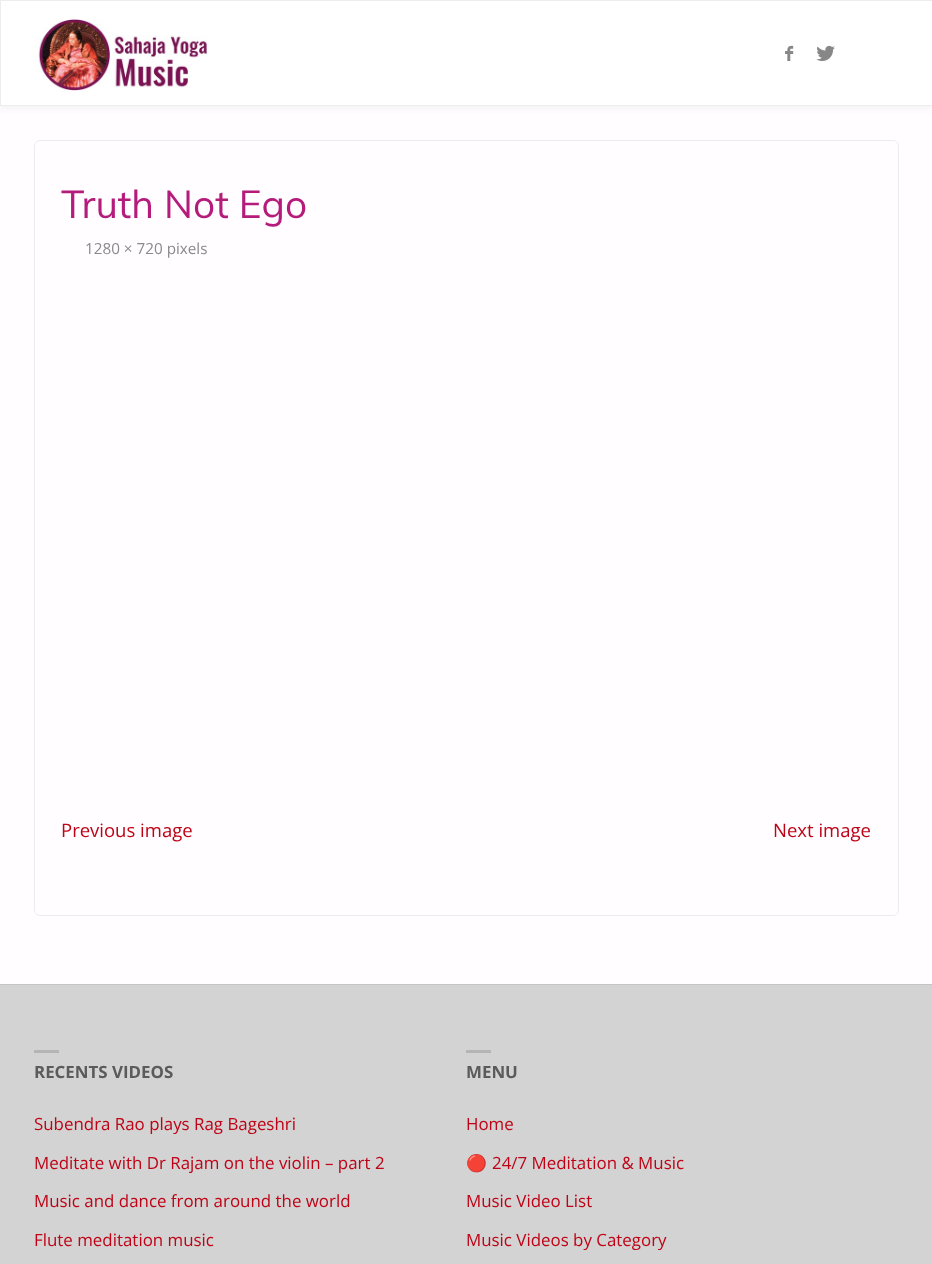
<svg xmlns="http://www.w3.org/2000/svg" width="932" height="1264">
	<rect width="100%" height="100%" fill="#FFFDFF" />
	<rect x="-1" y="-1" width="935" height="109" fill="#000000" fill-opacity="0.05" filter="blur(4px)" />
	<rect x="0.5" y="0.5" width="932" height="105" fill="#FFFFFF" stroke="#EDEDED" />
	<image x="35" y="18" width="173" height="75" href="assets/img1.png" />
	<image x="785" y="45" width="9" height="16" href="assets/img2.png" />
	<image x="816" y="45" width="19" height="16" href="assets/img3.png" />
	<rect x="34.5" y="140.5" width="864" height="775" rx="5.5" fill="none" stroke="#000000" stroke-opacity="0.07" />
	<text x="61" y="218" font-family="Muli" font-size="38.75" fill="#B51B7A">Truth Not Ego</text>
	<text x="85" y="254" font-family="Open Sans" font-size="15.25" fill="#8A8A8A">1280 × 720 pixels</text>
	<g font-family="Open Sans" font-size="18.5" fill="#BF0316">
		<text x="61" y="837">Previous image</text>
		<text x="773" y="837">Next image</text>
	</g>
	<rect x="0" y="985" width="932" height="279" fill="#D3D3D3" />
	<rect x="0" y="984" width="932" height="1" fill="#C4C4C4" />
	<rect x="34" y="1050" width="25" height="3" fill="#B5B5B5" />
	<text x="34" y="1078" font-family="Open Sans" font-size="16.9" font-weight="700" fill="#5B5B5B">RECENTS VIDEOS</text>
	<g font-family="Open Sans" font-size="16.9" fill="#BF0316">
		<text x="34" y="1130">Subendra Rao plays Rag Bageshri</text>
		<text x="34" y="1169">Meditate with Dr Rajam on the violin – part 2</text>
		<text x="34" y="1207">Music and dance from around the world</text>
		<text x="34" y="1246">Flute meditation music</text>
	</g>
	<rect x="466" y="1050" width="25" height="3" fill="#B5B5B5" />
	<text x="466" y="1078" font-family="Open Sans" font-size="16.9" font-weight="700" fill="#5B5B5B">MENU</text>
	<text x="466" y="1130" font-family="Open Sans" font-size="16.9" fill="#BF0316">Home</text>
	<text x="466" y="1169" font-family="Noto Color Emoji" font-size="16.9" fill="#BF0316">🔴</text>
	<g font-family="Open Sans" font-size="16.9" fill="#BF0316">
		<text x="492" y="1169">24/7 Meditation &amp; Music</text>
		<text x="466" y="1207">Music Video List</text>
		<text x="466" y="1246">Music Videos by Category</text>
	</g>
</svg>
